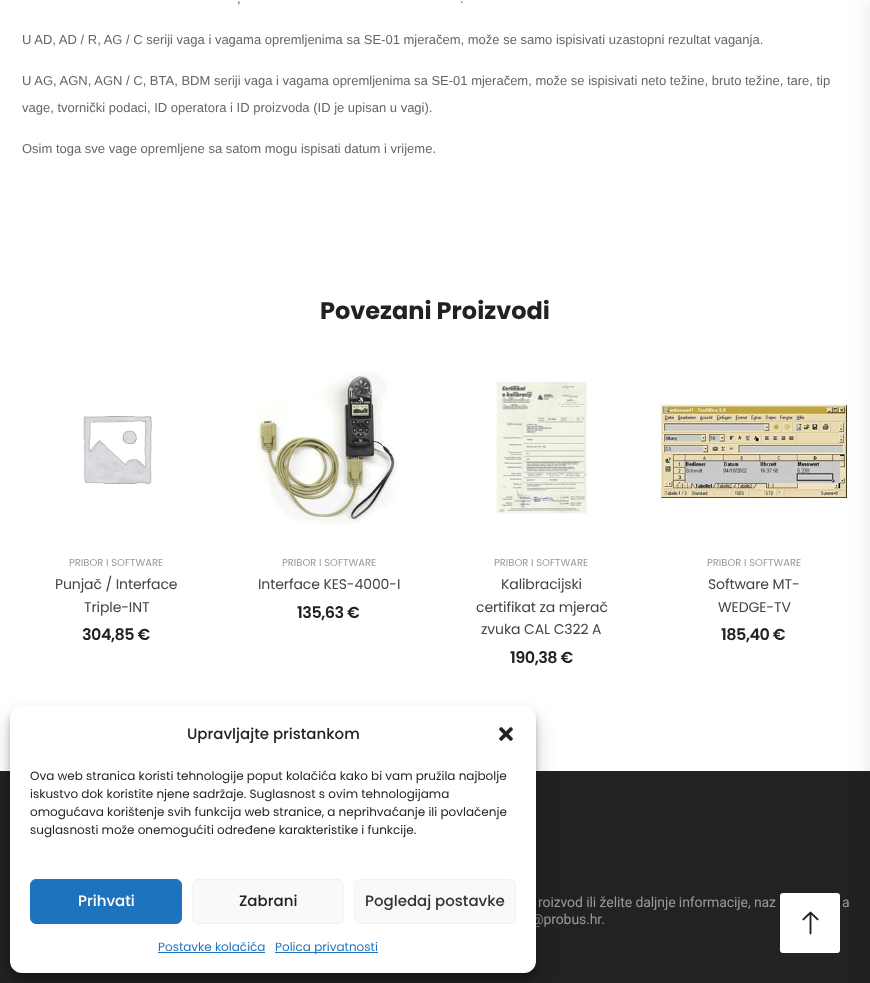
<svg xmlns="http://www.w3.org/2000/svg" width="870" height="983">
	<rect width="100%" height="100%" fill="#FFFFFF" />
	<g font-family="Liberation Sans" font-size="13" fill="#666666">
		<text x="237" y="3">,</text>
		<text x="460" y="3">.</text>
		<text x="22" y="44">U AD, AD / R, AG / C seriji vaga i vagama opremljenima sa SE-01 mjeračem, može se samo ispisivati uzastopni rezultat vaganja.</text>
		<text x="22" y="85">U AG, AGN, AGN / C, BTA, BDM seriji vaga i vagama opremljenima sa SE-01 mjeračem, može se ispisivati neto težine, bruto težine, tare, tip</text>
		<text x="22" y="112">vage, tvornički podaci, ID operatora i ID proizvoda (ID je upisan u vagi).</text>
		<text x="22" y="153">Osim toga sve vage opremljene sa satom mogu ispisati datum i vrijeme.</text>
	</g>
	<text x="320" y="319" font-family="Poppins" font-size="24" font-weight="700" fill="#222222">Povezani Proizvodi</text>
	<image x="83" y="416" width="69" height="68" href="assets/img1.png" />
	<text x="69" y="566" font-family="Poppins" font-size="10" fill="#999999">PRIBOR I SOFTWARE</text>
	<g font-family="Poppins" font-size="14" letter-spacing="-0.1" fill="#444444">
		<text x="55" y="589">Punjač / Interface</text>
		<text x="84" y="612">Triple-INT</text>
	</g>
	<text x="82" y="640" font-family="Poppins" font-size="16" font-weight="600" letter-spacing="-0.5" fill="#222222">304,85 €</text>
	<image x="254" y="371" width="144" height="154" href="assets/img2.png" />
	<text x="282" y="566" font-family="Poppins" font-size="10" fill="#999999">PRIBOR I SOFTWARE</text>
	<text x="258" y="589" font-family="Poppins" font-size="14" letter-spacing="-0.1" fill="#444444">Interface KES-4000-I</text>
	<text x="297" y="618" font-family="Poppins" font-size="16" font-weight="600" letter-spacing="-0.5" fill="#222222">135,63 €</text>
	<image x="496" y="380" width="93" height="135" href="assets/img3.png" />
	<text x="494" y="566" font-family="Poppins" font-size="10" fill="#999999">PRIBOR I SOFTWARE</text>
	<g font-family="Poppins" font-size="14" letter-spacing="-0.1" fill="#444444">
		<text x="501" y="589">Kalibracijski</text>
		<text x="476" y="612">certifikat za mjerač</text>
		<text x="481" y="634">zvuka CAL C322 A</text>
	</g>
	<text x="510" y="663" font-family="Poppins" font-size="16" font-weight="600" letter-spacing="-0.5" fill="#222222">190,38 €</text>
	<image x="658" y="402" width="191" height="102" href="assets/img4.png" />
	<text x="707" y="566" font-family="Poppins" font-size="10" fill="#999999">PRIBOR I SOFTWARE</text>
	<g font-family="Poppins" font-size="14" letter-spacing="-0.1" fill="#444444">
		<text x="708" y="589">Software MT-</text>
		<text x="718" y="612">WEDGE-TV</text>
	</g>
	<text x="721" y="640" font-family="Poppins" font-size="16" font-weight="600" letter-spacing="-0.5" fill="#222222">185,40 €</text>
	<rect x="0" y="771" width="870" height="212" fill="#222222" />
	<rect x="780" y="893" width="60" height="60" rx="3" fill="#FFFFFF" />
	<rect x="870" y="2" width="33" height="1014" fill="#000000" fill-opacity="0.1" filter="blur(11px)" />
	<g font-family="Roboto" font-size="14" letter-spacing="-0.1" fill="#999999">
		<text x="538" y="907">roizvod ili želite daljnje informacije, naz</text>
		<text x="842" y="907">a</text>
		<text x="531" y="924">@probus.hr.</text>
	</g>
	<rect x="10" y="712" width="526" height="267" rx="12" fill="#000000" fill-opacity="0.23" filter="blur(3px)" />
	<rect x="10" y="716" width="526" height="267" rx="12" fill="#000000" fill-opacity="0.19" filter="blur(10px)" />
	<rect x="10" y="706" width="526" height="267" rx="12" fill="#FFFFFF" />
	<text x="187" y="739" font-family="Poppins" font-size="15" font-weight="500" fill="#222222">Upravljajte pristankom</text>
	<image x="499" y="727" width="14" height="14" href="assets/img5.png" />
	<g font-family="Poppins" font-size="12" fill="#222222">
		<text x="30" y="780">Ova web stranica koristi tehnologije poput kolačića kako bi vam pružila najbolje</text>
		<text x="30" y="798">iskustvo dok koristite njene sadržaje. Suglasnost s ovim tehnologijama</text>
		<text x="30" y="816">omogućava korištenje svih funkcija web stranice, a neprihvaćanje ili povlačenje</text>
		<text x="30" y="834">suglasnosti može onemogućiti određene karakteristike i funkcije.</text>
	</g>
	<rect x="30.5" y="879.5" width="151" height="44" rx="5.5" fill="#1E73BE" stroke="#1E73BE" />
	<text x="78" y="906" font-family="Poppins" font-size="15" font-weight="500" fill="#FFFFFF">Prihvati</text>
	<rect x="192.5" y="879.5" width="151" height="44" rx="5.5" fill="#F9F9F9" stroke="#F2F2F2" />
	<text x="239" y="906" font-family="Poppins" font-size="15" font-weight="500" fill="#222222">Zabrani</text>
	<rect x="354.5" y="879.5" width="161" height="44" rx="5.5" fill="#F9F9F9" stroke="#F2F2F2" />
	<text x="365" y="906" font-family="Poppins" font-size="15" font-weight="500" fill="#333333">Pogledaj postavke</text>
	<text x="158" y="951" font-family="Poppins" font-size="12" fill="#1E73BE">Postavke kolačića</text>
	<rect x="158" y="952" width="107" height="1" fill="#1E73BE" />
	<rect x="275" y="952" width="103" height="1" fill="#1E73BE" />
	<text x="275" y="951" font-family="Poppins" font-size="12" fill="#1E73BE">Polica privatnosti</text>
	<image x="802" y="911" width="17" height="24" href="assets/img6.png" />
</svg>
